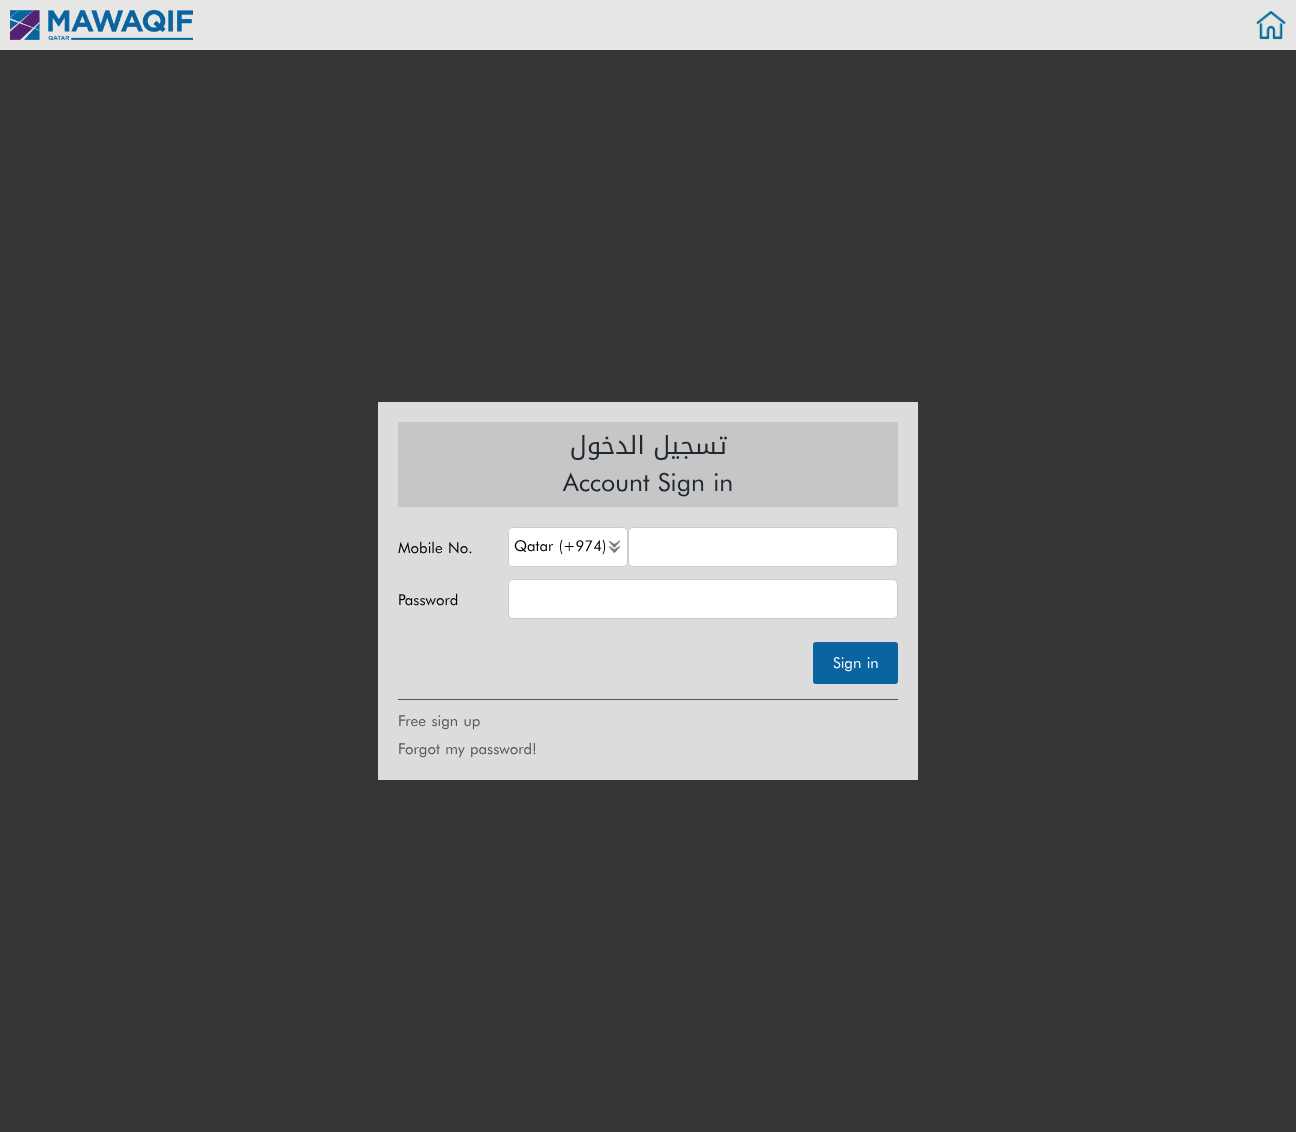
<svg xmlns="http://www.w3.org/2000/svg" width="1296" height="1132">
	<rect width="100%" height="100%" fill="#363636" />
	<rect x="0" y="0" width="1296" height="50" fill="#E6E6E5" />
	<image x="10" y="10" width="183" height="30" href="assets/img1.png" />
	<image x="1256" y="11" width="30" height="29" href="assets/img2.png" />
	<rect x="378" y="402" width="540" height="378" fill="#DCDCDC" />
	<rect x="398" y="422" width="500" height="85" fill="#C6C6C6" />
	<text x="727" y="454" font-family="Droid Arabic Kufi" font-size="25" direction="rtl" fill="#1F2731">تسجيل الدخول</text>
	<text x="563" y="491" word-spacing="1" font-family="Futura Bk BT" font-size="25" fill="#1F2731">Account Sign in</text>
	<text x="398" y="553" word-spacing="1" font-family="Futura Bk BT" font-size="15" fill="#000000">Mobile No.</text>
	<rect x="508" y="527" width="120" height="40" rx="5" fill="#FFFFFF" />
	<image x="608" y="540" width="13" height="14" href="assets/img3.png" />
	<rect x="508.5" y="527.5" width="119" height="39" rx="4.5" fill="none" stroke="#CCCCCC" />
	<text x="514" y="551" word-spacing="1" font-family="Futura Bk BT" font-size="15" fill="#000000">Qatar (+974)</text>
	<rect x="628.5" y="527.5" width="269" height="39" rx="4.5" fill="#FFFFFF" stroke="#CCCCCC" />
	<text x="398" y="605" font-family="Futura Bk BT" font-size="15" fill="#000000">Password</text>
	<rect x="508.5" y="579.5" width="389" height="39" rx="4.5" fill="#FFFFFF" stroke="#CCCCCC" />
	<rect x="813" y="642" width="85" height="42" rx="3" fill="#0A649F" />
	<text x="833" y="668" word-spacing="1" font-family="Futura Bk BT" font-size="15" fill="#FFFFFF">Sign in</text>
	<rect x="398" y="699" width="500" height="1" fill="#565656" />
	<g font-family="Futura Bk BT" font-size="15" fill="#565656">
		<text x="398" y="726" word-spacing="1">Free sign up</text>
		<text x="398" y="754" word-spacing="1">Forgot my password!</text>
	</g>
</svg>
